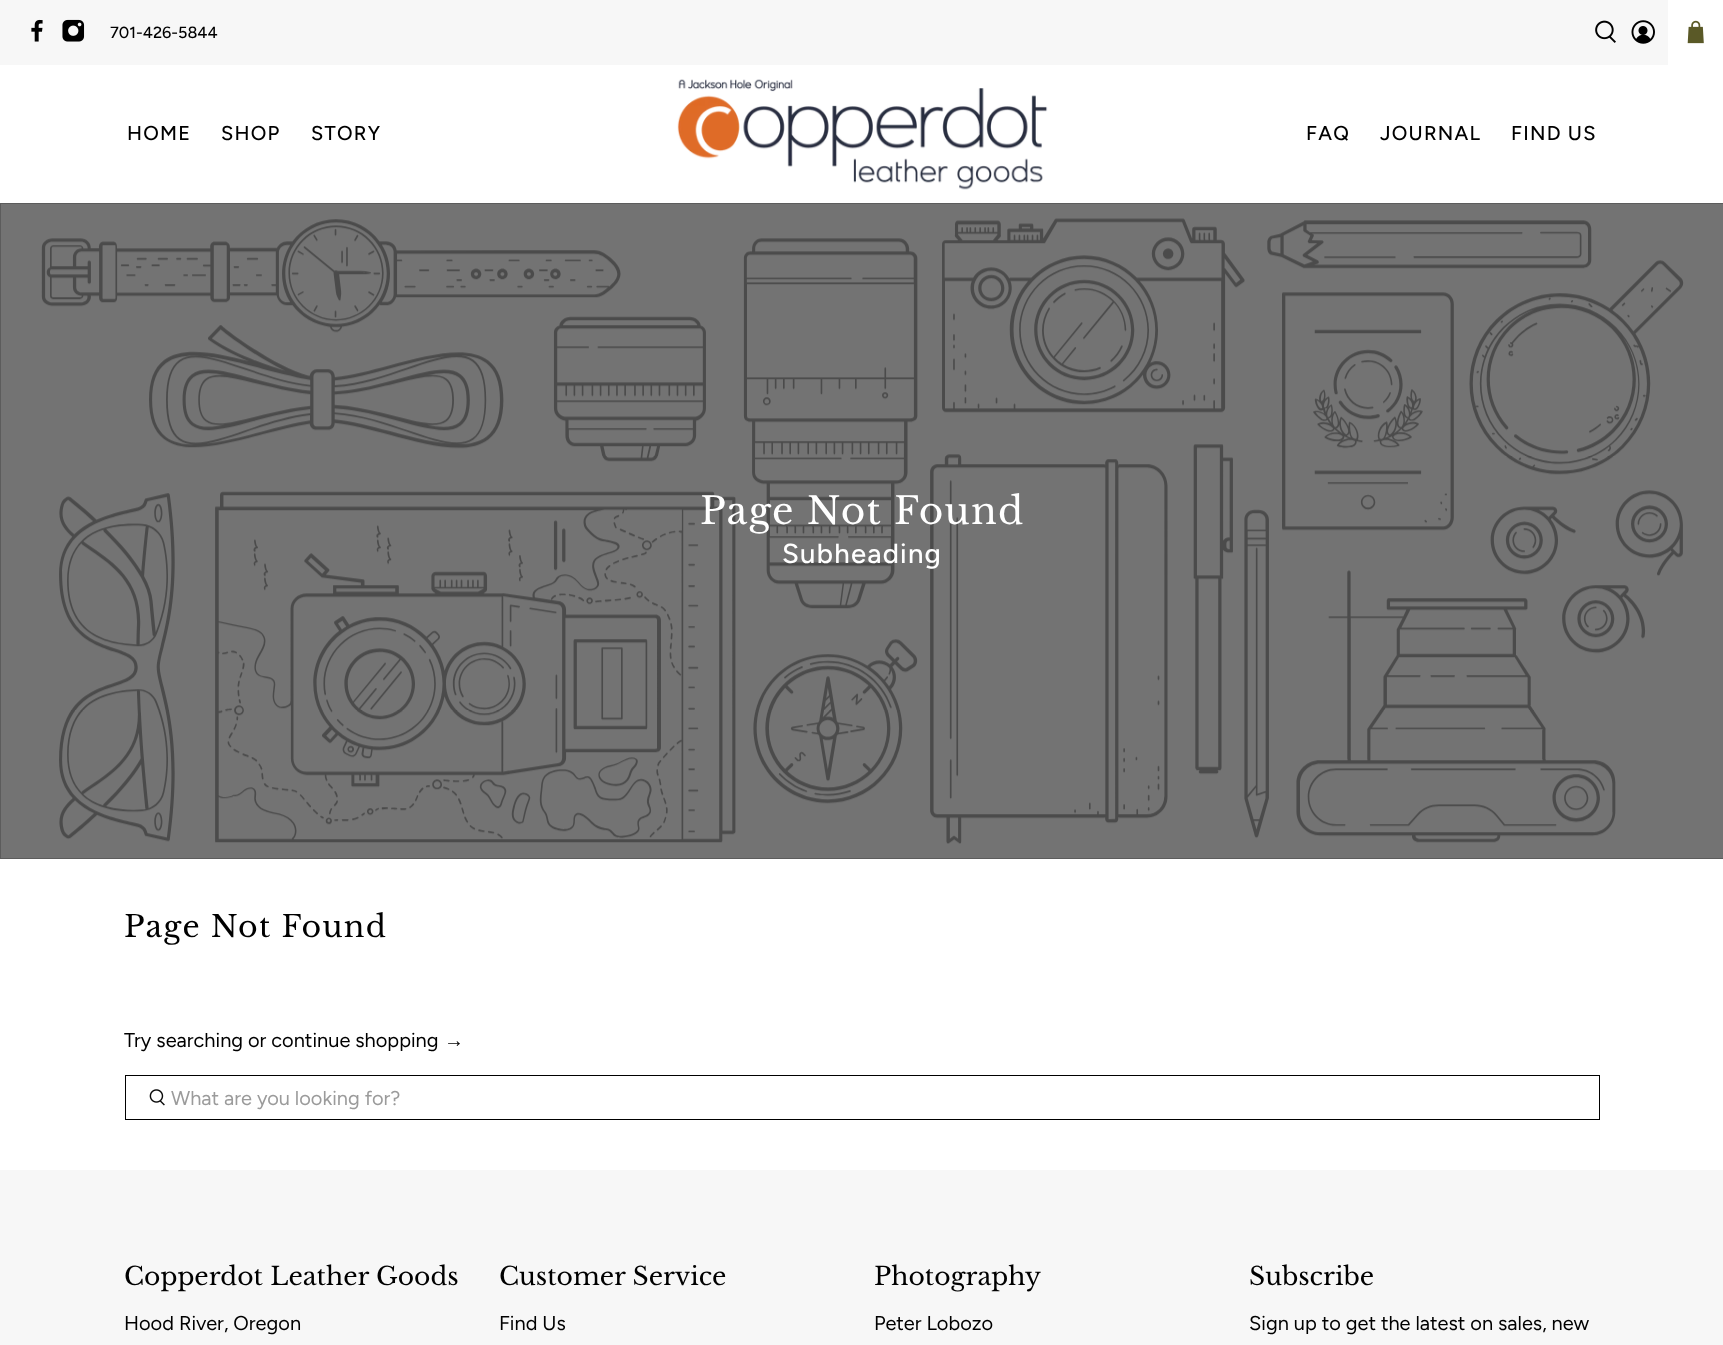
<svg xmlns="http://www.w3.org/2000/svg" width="1723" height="1345">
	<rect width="100%" height="100%" fill="#FFFFFF" />
	<rect x="0" y="0" width="1668" height="65" fill="#F7F7F7" />
	<image x="31" y="19" width="12" height="23" href="assets/img1.png" />
	<image x="62" y="19" width="23" height="23" href="assets/img2.png" />
	<text x="110" y="38" font-family="Figtree" font-size="16.25" font-weight="500" fill="#000000">701-426-5844</text>
	<image x="1595" y="20" width="21" height="23" href="assets/img3.png" />
	<image x="1631" y="20" width="24" height="24" href="assets/img4.png" />
	<image x="1687" y="20" width="17" height="24" href="assets/img5.png" />
	<g font-family="Figtree" font-size="20" font-weight="500" letter-spacing="1.25" fill="#000000">
		<text x="127" y="140">HOME</text>
		<text x="221" y="140">SHOP</text>
		<text x="311" y="140">STORY</text>
	</g>
	<image x="677" y="79" width="371" height="111" href="assets/img6.png" />
	<g font-family="Figtree" font-size="20" font-weight="500" letter-spacing="1.25" fill="#000000">
		<text x="1306" y="140">FAQ</text>
		<text x="1380" y="140">JOURNAL</text>
		<text x="1511" y="140">FIND US</text>
	</g>
	<rect x="0.5" y="203.5" width="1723" height="655" fill="#737373" stroke="#5C5C5C" />
	<image x="41" y="218" width="1643" height="626" href="assets/img7.png" />
	<text x="700" y="524" font-family="Libre Baskerville" font-size="37.5" letter-spacing="1.25" fill="#FFFFFF">Page Not Found</text>
	<text x="782" y="563" font-family="Figtree" font-size="27.5" font-weight="500" letter-spacing="1.25" fill="#FFFFFF">Subheading</text>
	<text x="124" y="937" font-family="Libre Baskerville" font-size="30" letter-spacing="1.25" fill="#000000">Page Not Found</text>
	<text x="124" y="1047" font-family="Figtree" font-size="20" fill="#000000">Try searching or continue shopping</text>
	<text x="444" y="1047" font-family="Liberation Sans" font-size="20" fill="#000000">→</text>
	<rect x="125.5" y="1075.5" width="1474" height="44" fill="none" stroke="#000000" />
	<image x="149" y="1089" width="16" height="17" href="assets/img8.png" />
	<text x="171" y="1105" font-family="Figtree" font-size="20" fill="#9B9B9B">What are you looking for?</text>
	<rect x="0" y="1170" width="1723" height="175" fill="#F7F7F7" />
	<text x="124" y="1285" font-family="Libre Baskerville" font-size="25" fill="#000000">Copperdot Leather Goods</text>
	<text x="124" y="1330" font-family="Figtree" font-size="20" fill="#000000">Hood River, Oregon</text>
	<text x="499" y="1285" font-family="Libre Baskerville" font-size="25" fill="#000000">Customer Service</text>
	<text x="499" y="1330" font-family="Figtree" font-size="20" fill="#000000">Find Us</text>
	<text x="874" y="1285" font-family="Libre Baskerville" font-size="25" fill="#000000">Photography</text>
	<text x="874" y="1330" font-family="Figtree" font-size="20" fill="#000000">Peter Lobozo</text>
	<text x="1249" y="1285" font-family="Libre Baskerville" font-size="25" fill="#000000">Subscribe</text>
	<text x="1249" y="1330" font-family="Figtree" font-size="20" fill="#000000">Sign up to get the latest on sales, new</text>
</svg>
